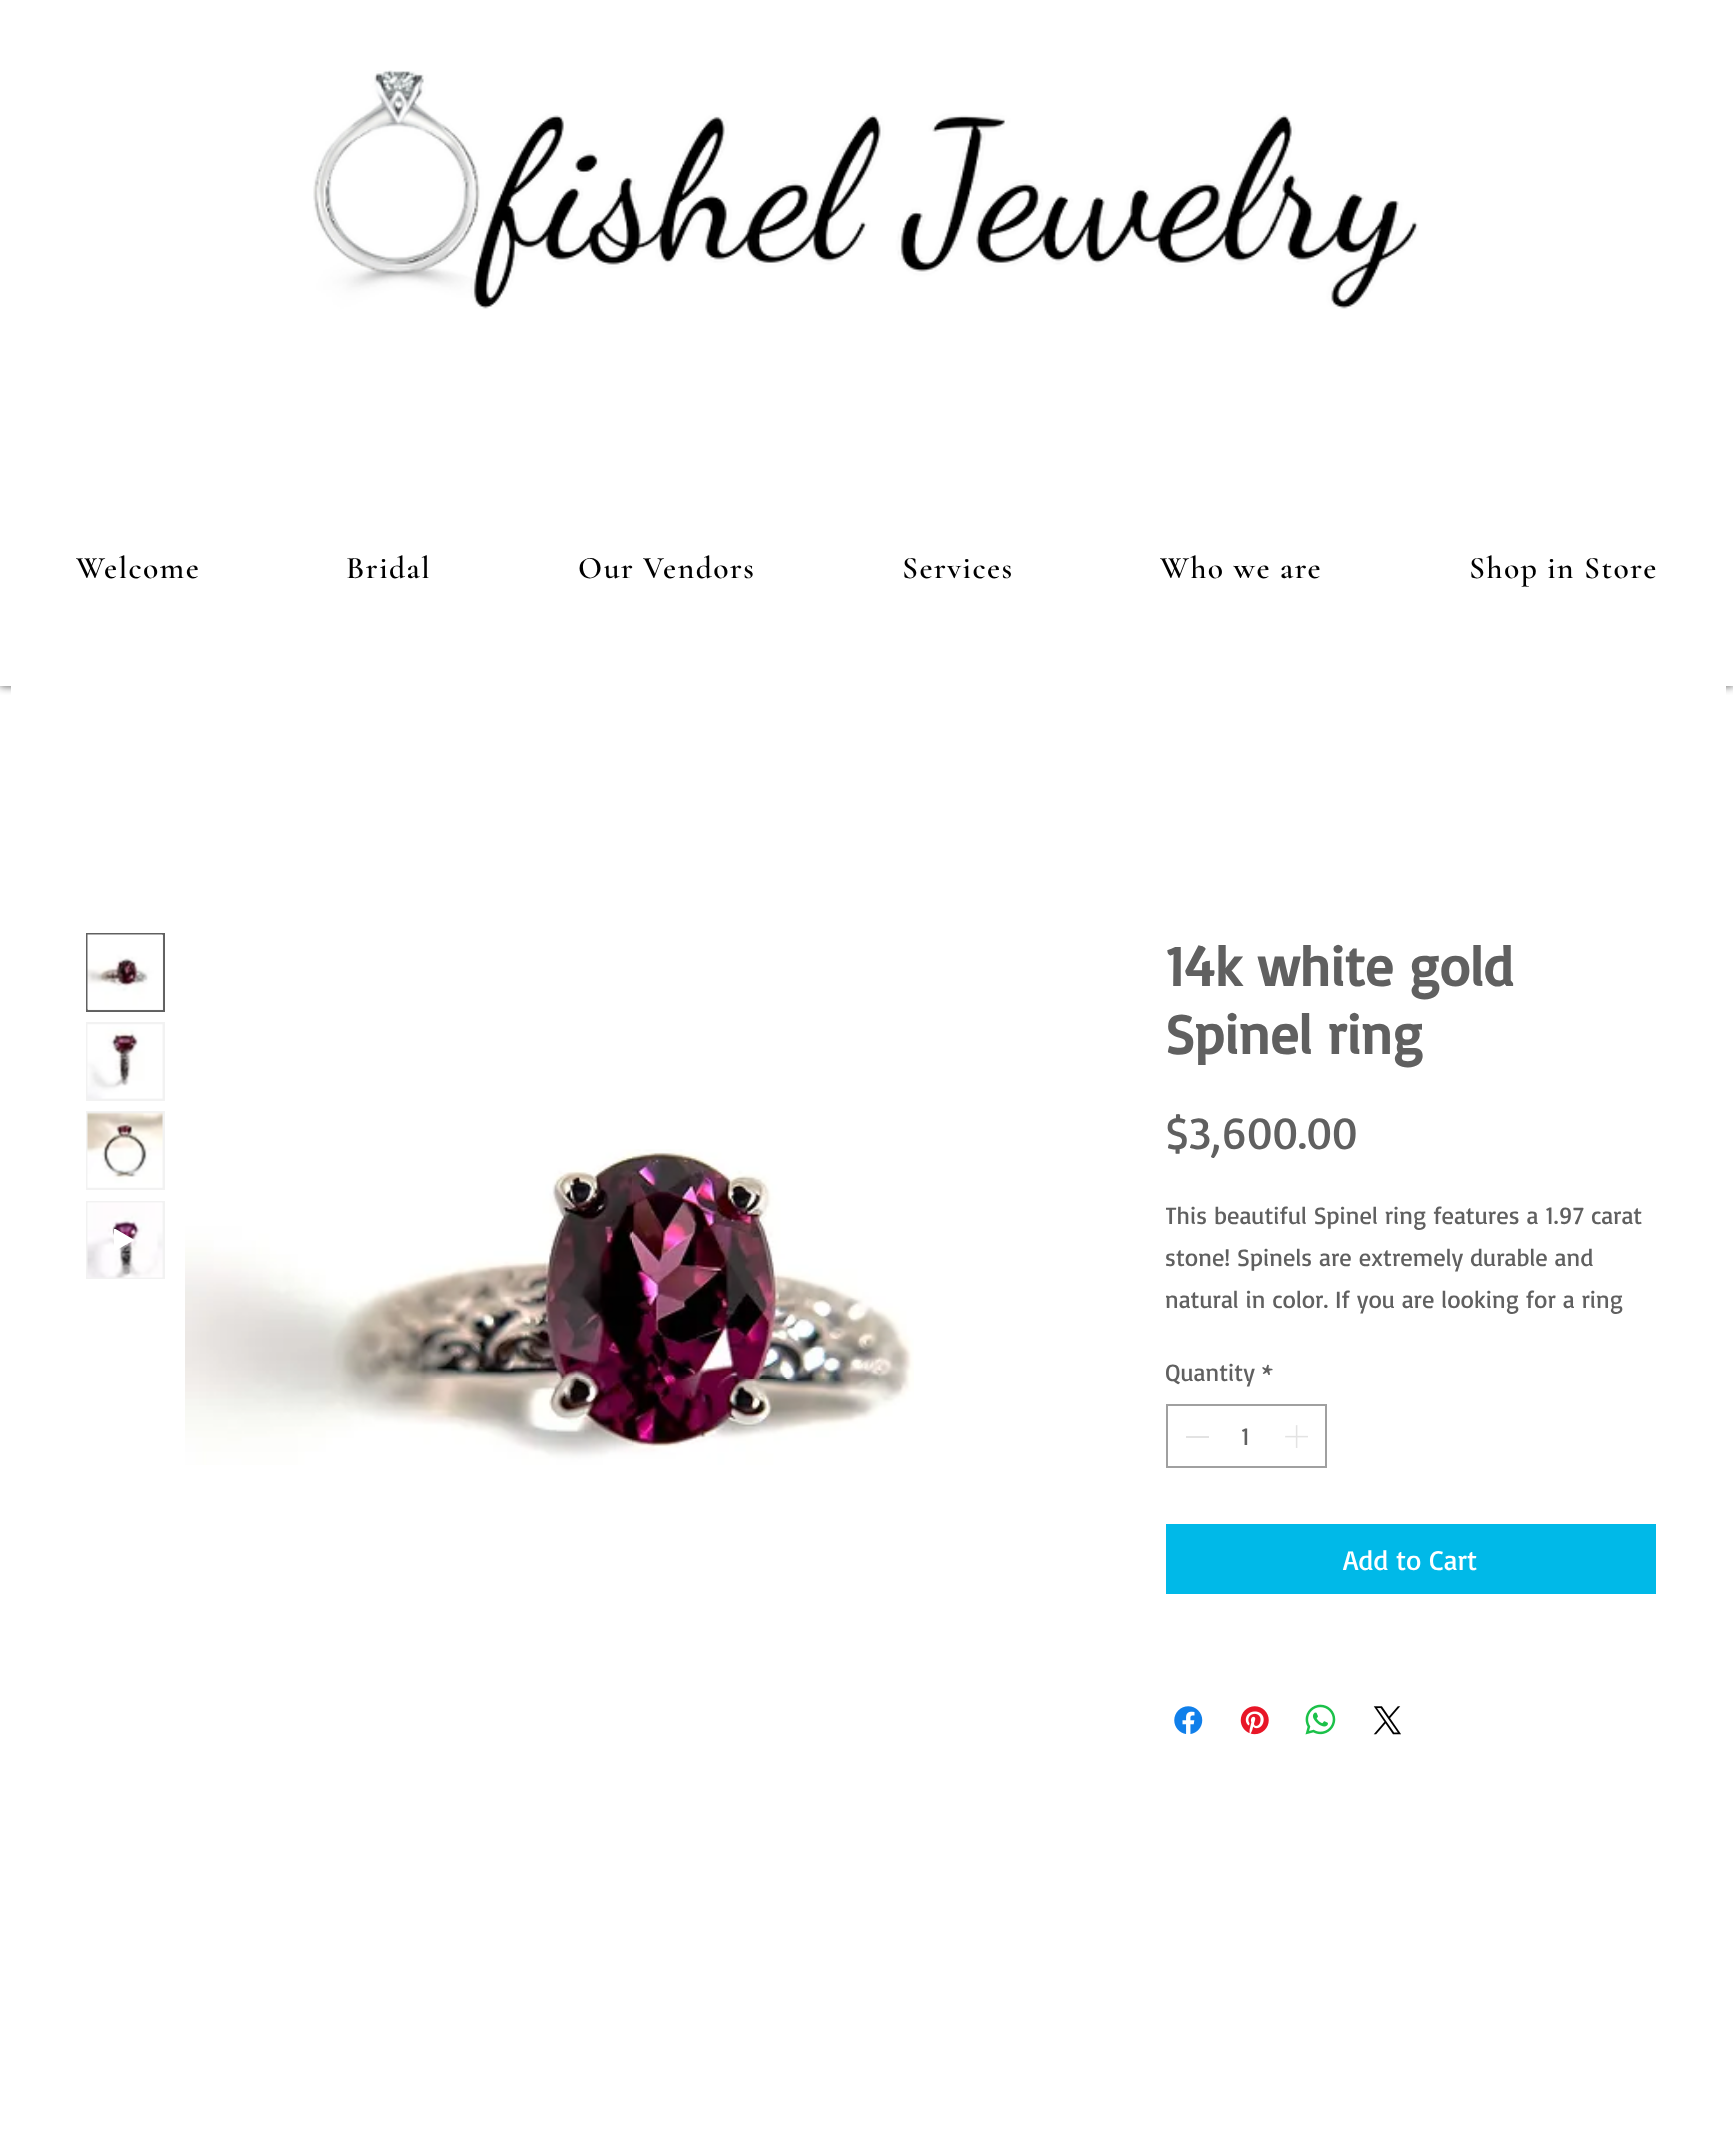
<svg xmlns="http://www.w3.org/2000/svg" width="1733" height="2140">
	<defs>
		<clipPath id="clip1"><rect x="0" y="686" width="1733" height="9" /></clipPath>
		<clipPath id="clip2"><rect x="112" y="1229" width="23" height="22" /></clipPath>
		<clipPath id="clip3"><rect x="1166" y="1194" width="490" height="126" /></clipPath>
	</defs>
	<rect width="100%" height="100%" fill="#FFFFFF" />
	<g clip-path="url(#clip1)">
		<rect x="0" y="0" width="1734" height="686" fill="#000000" fill-opacity="0.7" filter="blur(4.5px)" />
	</g>
	<image x="313" y="70" width="1106" height="239" href="assets/img1.png" />
	<g font-family="Cormorant Garamond" font-size="31.5" font-weight="600" letter-spacing="1.5" fill="#000000">
		<text x="76" y="578">Welcome</text>
		<text x="346" y="578">Bridal</text>
		<text x="578" y="578">Our Vendors</text>
		<text x="902" y="578">Services</text>
		<text x="1160" y="578">Who we are</text>
		<text x="1469" y="578">Shop in Store</text>
	</g>
	<rect x="11" y="686" width="1715" height="10" fill="#FFFFFF" />
	<rect x="87" y="934" width="77" height="77" fill="#F2F2F2" stroke="#606060" stroke-width="2" />
	<image x="87" y="934" width="77" height="77" href="assets/img2.png" />
	<rect x="86" y="1022" width="79" height="79" fill="#F2F2F2" />
	<image x="87" y="1024" width="76" height="75" href="assets/img3.png" />
	<rect x="86" y="1111" width="79" height="79" fill="#F2F2F2" />
	<image x="87" y="1112" width="76" height="76" href="assets/img4.png" />
	<rect x="86" y="1201" width="79" height="78" fill="#F2F2F2" />
	<image x="87" y="1202" width="76" height="76" href="assets/img5.png" />
	<g clip-path="url(#clip2)">
		<path d="M114 1228V1251.5L134.5 1240Z" fill="#FFFFFF" />
	</g>
	<image x="185" y="1149" width="729" height="316" href="assets/img6.png" />
	<g font-family="Basic" font-size="56" font-weight="700" fill="#606060">
		<text x="1165" y="986">14k white gold</text>
		<text x="1165" y="1054">Spinel ring</text>
	</g>
	<text x="1165" y="1149" font-family="Basic" font-size="45.5" fill="#606060">$3,600.00</text>
	<g clip-path="url(#clip3)">
		<g font-family="Basic" font-size="24.5" fill="#606060">
			<text x="1165" y="1224">This beautiful Spinel ring features a 1.97 carat</text>
			<text x="1165" y="1266">stone! Spinels are extremely durable and</text>
			<text x="1165" y="1308">natural in color. If you are looking for a ring</text>
		</g>
	</g>
	<text x="1165" y="1381" font-family="Basic" font-size="24.5" fill="#606060">Quantity *</text>
	<rect x="1167" y="1405" width="159" height="62" fill="none" stroke="#A0A0A0" stroke-width="2" />
	<rect x="1186" y="1436" width="23" height="2" fill="#E3E3E3" />
	<text x="1241" y="1445" font-family="Basic" font-size="24.5" fill="#606060">1</text>
	<image x="1285" y="1425" width="23" height="23" href="assets/img7.png" />
	<rect x="1166" y="1524" width="490" height="70" fill="#00B9E8" />
	<text x="1343" y="1570" font-family="Basic" font-size="28" fill="#FFFFFF">Add to Cart</text>
	<image x="1174" y="1706" width="29" height="28" href="assets/img8.png" />
	<image x="1240" y="1706" width="29" height="29" href="assets/img9.png" />
	<image x="1305" y="1704" width="31" height="31" href="assets/img10.png" />
	<image x="1373" y="1706" width="28" height="29" href="assets/img11.png" />
</svg>
